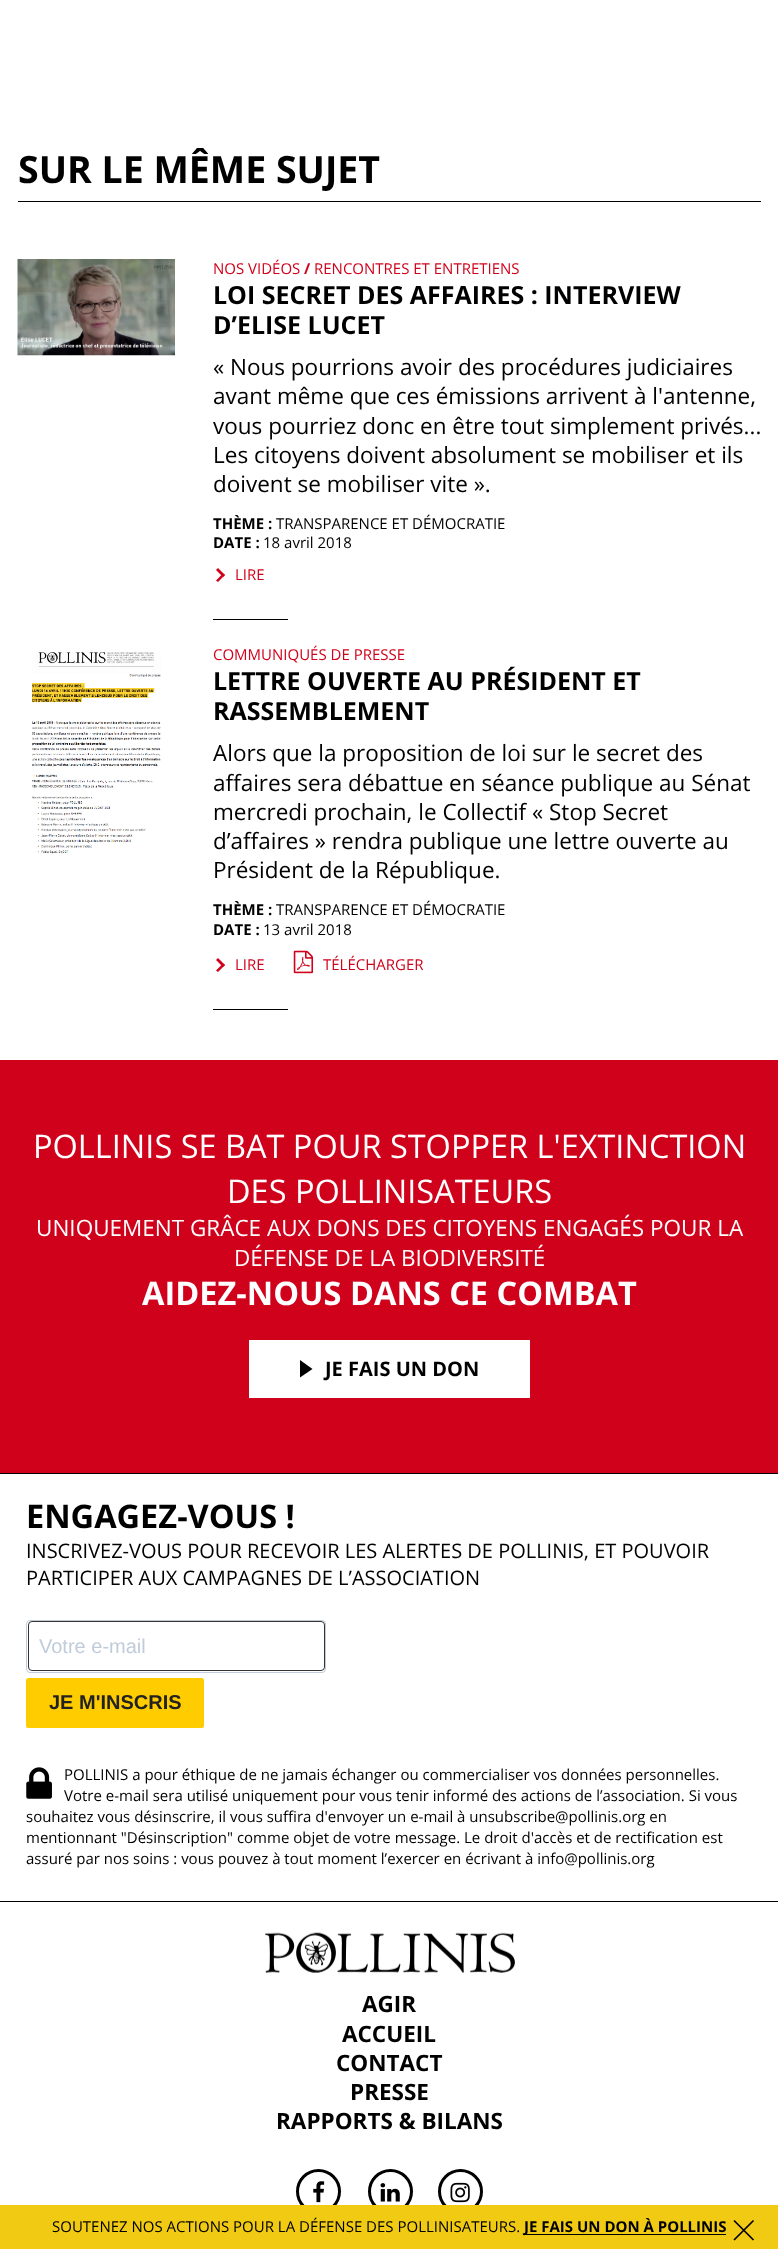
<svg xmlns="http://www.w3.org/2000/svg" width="778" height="2249">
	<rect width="100%" height="100%" fill="#FFFFFF" />
	<rect x="18" y="201" width="743" height="1" fill="#000000" />
	<text x="18" y="183" font-family="Open Sans" font-size="37.5" font-weight="700" fill="#000000">SUR LE MÊME SUJET</text>
	<image x="17" y="259" width="158" height="97" href="assets/img1.png" />
	<text x="213" y="274" font-family="Open Sans" font-size="15" fill="#D0021B">NOS VIDÉOS</text>
	<text x="304" y="274" font-family="Open Sans" font-size="15" font-weight="700" fill="#D0021B">/</text>
	<text x="314" y="274" font-family="Open Sans" font-size="15" fill="#D0021B">RENCONTRES ET ENTRETIENS</text>
	<g font-family="Open Sans" font-size="25" font-weight="700" fill="#000000">
		<text x="213" y="304">LOI SECRET DES AFFAIRES : INTERVIEW</text>
		<text x="213" y="334">D’ELISE LUCET</text>
	</g>
	<g font-family="Open Sans" font-size="22.5" fill="#000000">
		<text x="213" y="375">« Nous pourrions avoir des procédures judiciaires</text>
		<text x="213" y="404">avant même que ces émissions arrivent à l'antenne,</text>
		<text x="213" y="434">vous pourriez donc en être tout simplement privés...</text>
		<text x="213" y="463">Les citoyens doivent absolument se mobiliser et ils</text>
		<text x="213" y="492">doivent se mobiliser vite ».</text>
	</g>
	<text x="213" y="529" font-family="Open Sans" font-size="15" font-weight="700" fill="#000000">THÈME :</text>
	<text x="276" y="529" font-family="Open Sans" font-size="15" fill="#000000">TRANSPARENCE ET DÉMOCRATIE</text>
	<text x="213" y="548" font-family="Open Sans" font-size="15" font-weight="700" fill="#000000">DATE :</text>
	<text x="263" y="548" font-family="Open Sans" font-size="15" fill="#000000">18 avril 2018</text>
	<path d="M216 570L218 568L225 575L223 577Z" fill="#D0021B" />
	<path d="M216 580.5L223 573.5L225 575L218 582Z" fill="#D0021B" />
	<text x="235" y="580" font-family="Open Sans" font-size="15" fill="#D0021B">LIRE</text>
	<rect x="213" y="619" width="75" height="1" fill="#000000" />
	<image x="32" y="652" width="129" height="202" href="assets/img2.png" />
	<text x="213" y="660" font-family="Open Sans" font-size="15" fill="#D0021B">COMMUNIQUÉS DE PRESSE</text>
	<g font-family="Open Sans" font-size="25" font-weight="700" fill="#000000">
		<text x="213" y="690">LETTRE OUVERTE AU PRÉSIDENT ET</text>
		<text x="213" y="720">RASSEMBLEMENT</text>
	</g>
	<g font-family="Open Sans" font-size="22.5" fill="#000000">
		<text x="213" y="761">Alors que la proposition de loi sur le secret des</text>
		<text x="213" y="791">affaires sera débattue en séance publique au Sénat</text>
		<text x="213" y="820">mercredi prochain, le Collectif « Stop Secret</text>
		<text x="213" y="849">d’affaires » rendra publique une lettre ouverte au</text>
		<text x="213" y="878">Président de la République.</text>
	</g>
	<text x="213" y="915" font-family="Open Sans" font-size="15" font-weight="700" fill="#000000">THÈME :</text>
	<text x="276" y="915" font-family="Open Sans" font-size="15" fill="#000000">TRANSPARENCE ET DÉMOCRATIE</text>
	<text x="213" y="935" font-family="Open Sans" font-size="15" font-weight="700" fill="#000000">DATE :</text>
	<text x="263" y="935" font-family="Open Sans" font-size="15" fill="#000000">13 avril 2018</text>
	<path d="M216 960L218 958L225 965L223 967Z" fill="#D0021B" />
	<path d="M216 970.5L223 963.5L225 965L218 972Z" fill="#D0021B" />
	<text x="235" y="970" font-family="Open Sans" font-size="15" fill="#D0021B">LIRE</text>
	<image x="293" y="950" width="21" height="24" href="assets/img3.png" />
	<text x="323" y="970" font-family="Open Sans" font-size="15" fill="#D0021B">TÉLÉCHARGER</text>
	<rect x="213" y="1009" width="75" height="1" fill="#000000" />
	<rect x="0" y="1060" width="778" height="413" fill="#D0021B" />
	<g font-family="Open Sans" font-size="32.5" fill="#FFFFFF">
		<text x="33" y="1158">POLLINIS SE BAT POUR STOPPER L'EXTINCTION</text>
		<text x="227" y="1203">DES POLLINISATEURS</text>
	</g>
	<g font-family="Open Sans" font-size="22.5" fill="#FFFFFF">
		<text x="36" y="1236">UNIQUEMENT GRÂCE AUX DONS DES CITOYENS ENGAGÉS POUR LA</text>
		<text x="234" y="1266">DÉFENSE DE LA BIODIVERSITÉ</text>
	</g>
	<text x="142" y="1305" font-family="Open Sans" font-size="32.5" font-weight="700" fill="#FFFFFF">AIDEZ-NOUS DANS CE COMBAT</text>
	<rect x="249" y="1340" width="281" height="58" fill="#FFFFFF" />
	<path d="M300 1377.5V1360L312.5 1369Z" fill="#000000" />
	<text x="325" y="1376" font-family="Open Sans" font-size="20" font-weight="700" fill="#000000">JE FAIS UN DON</text>
	<rect x="0" y="1473" width="778" height="1" fill="#000000" />
	<text x="26" y="1528" font-family="Open Sans" font-size="32.5" font-weight="700" fill="#000000">ENGAGEZ-VOUS !</text>
	<g font-family="Open Sans" font-size="20" fill="#000000">
		<text x="26" y="1558">INSCRIVEZ-VOUS POUR RECEVOIR LES ALERTES DE POLLINIS, ET POUVOIR</text>
		<text x="26" y="1585">PARTICIPER AUX CAMPAGNES DE L’ASSOCIATION</text>
	</g>
	<rect x="26.5" y="1620.5" width="299" height="52" rx="3.5" fill="none" stroke="#C0CCDA" />
	<rect x="28.5" y="1621.5" width="296" height="49" rx="3.5" fill="none" stroke="#333333" />
	<text x="39" y="1653" font-family="Liberation Sans" font-size="20" fill="#C0CCDA">Votre e-mail</text>
	<rect x="26" y="1678" width="178" height="50" rx="2.5" fill="#FFCC00" />
	<text x="49" y="1709" font-family="Liberation Sans" font-size="20" font-weight="700" fill="#222222">JE M'INSCRIS</text>
	<image x="26" y="1767" width="26" height="32" href="assets/img4.png" />
	<g font-family="Open Sans" font-size="15" fill="#000000">
		<text x="64" y="1780">POLLINIS a pour éthique de ne jamais échanger ou commercialiser vos données personnelles.</text>
		<text x="64" y="1801">Votre e-mail sera utilisé uniquement pour vous tenir informé des actions de l’association. Si vous</text>
		<text x="26" y="1822">souhaitez vous désinscrire, il vous suffira d'envoyer un e-mail à unsubscribe@pollinis.org en</text>
		<text x="26" y="1843">mentionnant "Désinscription" comme objet de votre message. Le droit d'accès et de rectification est</text>
		<text x="26" y="1864">assuré par nos soins : vous pouvez à tout moment l’exercer en écrivant à info@pollinis.org</text>
	</g>
	<rect x="0" y="1901" width="778" height="1" fill="#000000" />
	<image x="265" y="1932" width="250" height="41" href="assets/img5.png" />
	<g font-family="Open Sans" font-size="22.5" font-weight="700" fill="#000000">
		<text x="362" y="2012">AGIR</text>
		<text x="342" y="2042">ACCUEIL</text>
		<text x="336" y="2071">CONTACT</text>
		<text x="350" y="2100">PRESSE</text>
		<text x="276" y="2129">RAPPORTS &amp; BILANS</text>
	</g>
	<circle cx="318.5" cy="2191.5" r="21" fill="none" stroke="#000000" stroke-width="3" />
	<image x="313" y="2181" width="12" height="22" href="assets/img6.png" />
	<circle cx="390.5" cy="2191.5" r="21" fill="none" stroke="#000000" stroke-width="3" />
	<image x="380" y="2183" width="20" height="19" href="assets/img7.png" />
	<circle cx="460.5" cy="2191.5" r="21" fill="none" stroke="#000000" stroke-width="3" />
	<image x="450" y="2182" width="20" height="21" href="assets/img8.png" />
	<rect x="0" y="2205" width="778" height="44" fill="#F1CB13" />
	<text x="52" y="2232" font-family="Open Sans" font-size="15" fill="#000000">SOUTENEZ NOS ACTIONS POUR LA DÉFENSE DES POLLINISATEURS.</text>
	<rect x="524" y="2234" width="202" height="1" fill="#000000" />
	<text x="524" y="2232" font-family="Open Sans" font-size="15" font-weight="700" fill="#000000">JE FAIS UN DON À POLLINIS</text>
	<path d="M753.5 2240L734 2220.5M753.5 2220.5L734 2240" fill="none" stroke="#000000" stroke-width="1.7" />
</svg>
